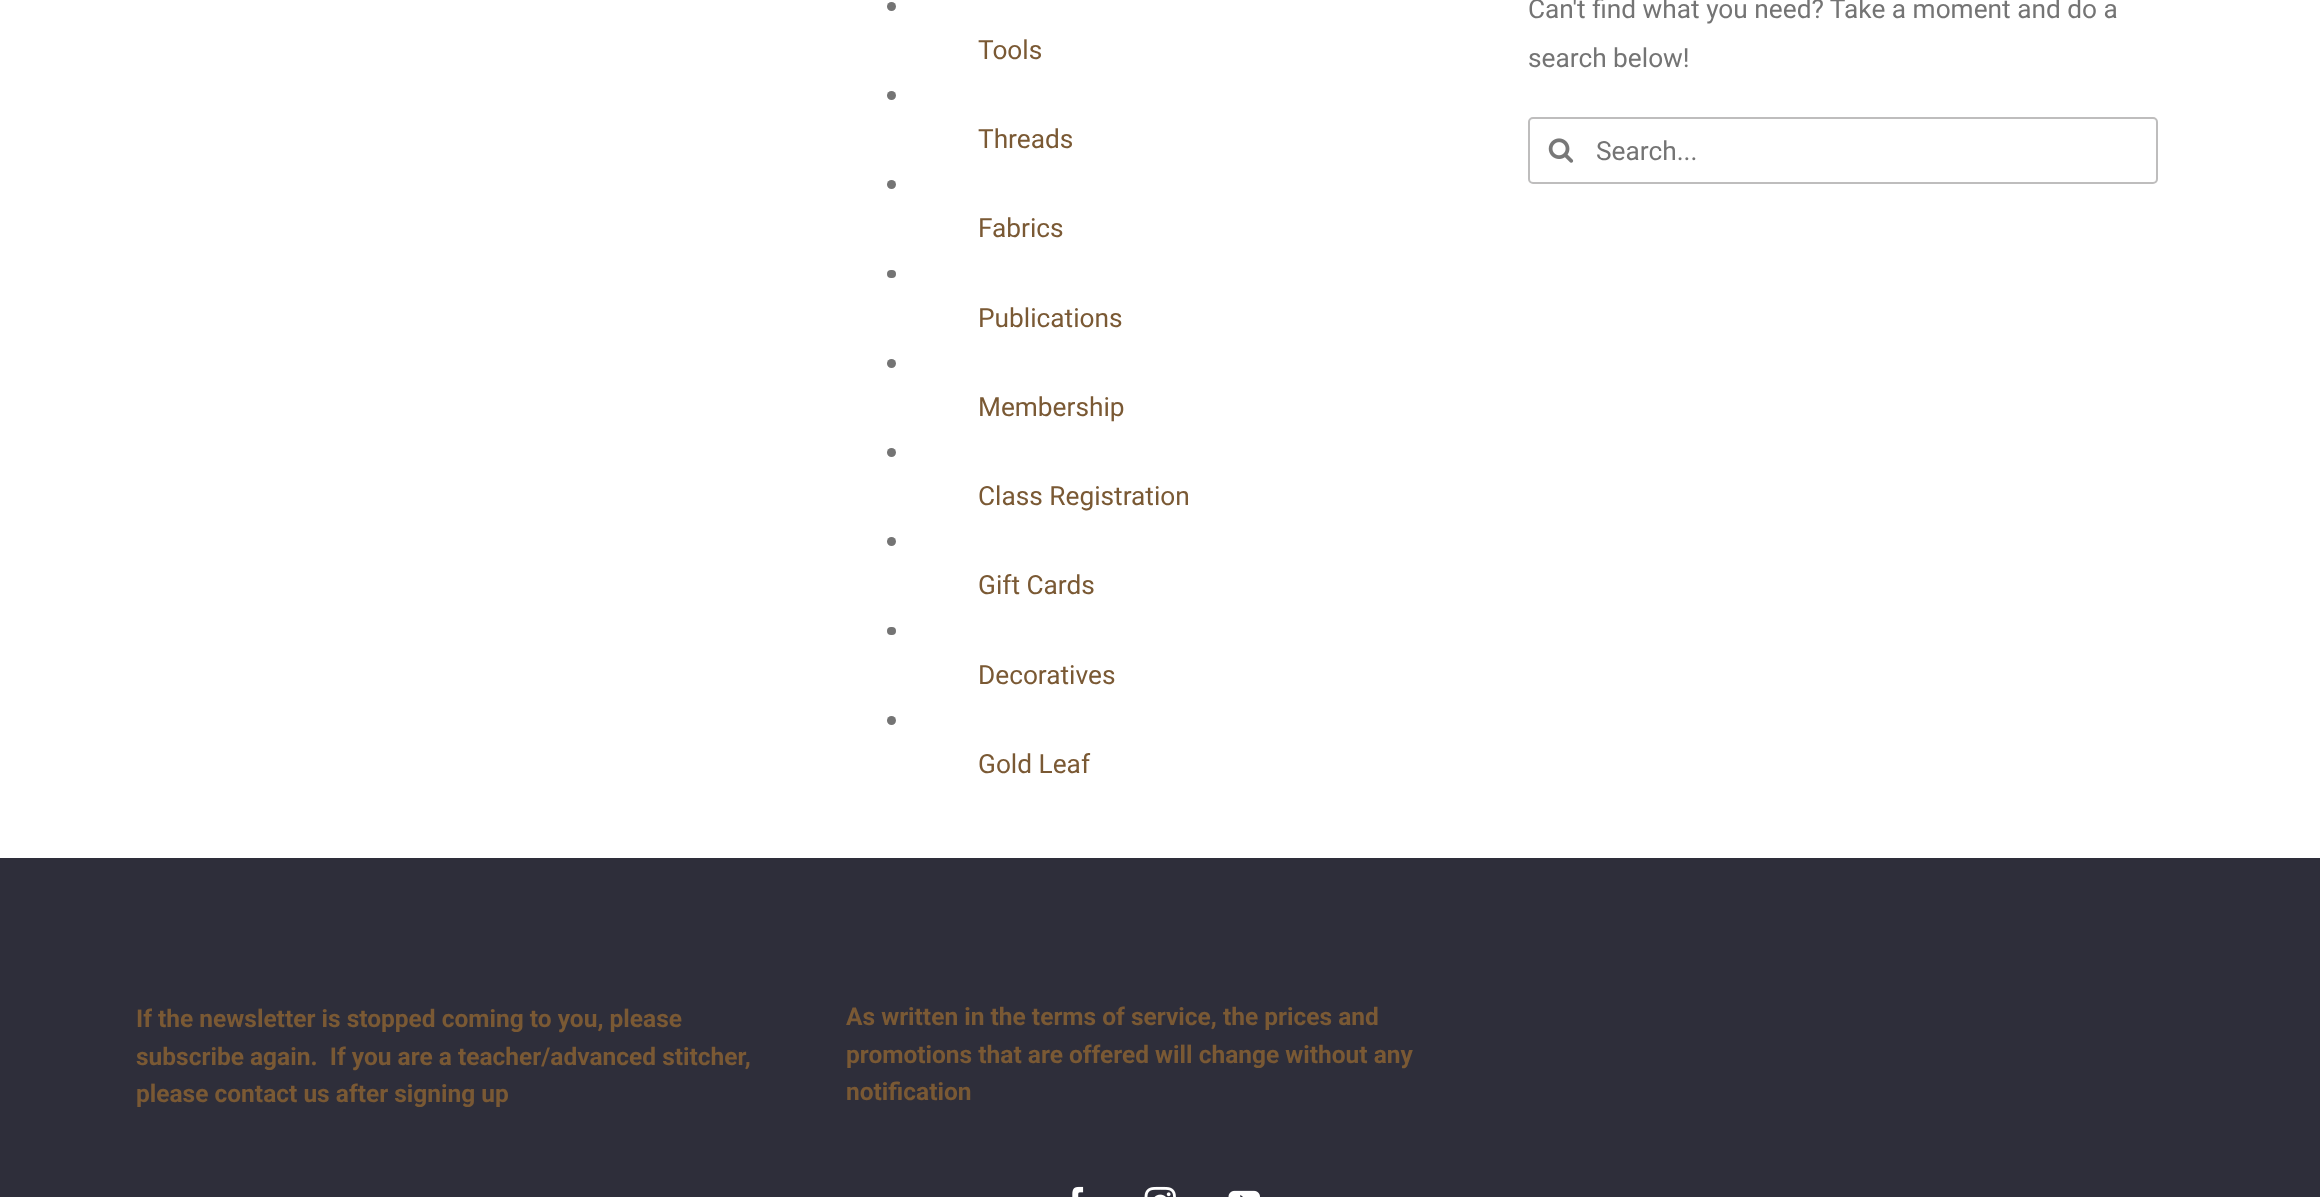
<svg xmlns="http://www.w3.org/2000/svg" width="2320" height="1197">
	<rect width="100%" height="100%" fill="#FFFFFF" />
	<circle cx="891.5" cy="6.5" r="4.5" fill="#747474" />
	<text x="978" y="59" font-family="Roboto" font-size="26.25" fill="#7A5934">Tools</text>
	<circle cx="891.5" cy="95.5" r="4.5" fill="#747474" />
	<text x="978" y="148" font-family="Roboto" font-size="26.25" fill="#7A5934">Threads</text>
	<circle cx="891.5" cy="184.5" r="4.5" fill="#747474" />
	<text x="978" y="237" font-family="Roboto" font-size="26.25" fill="#7A5934">Fabrics</text>
	<rect x="887" y="270" width="9" height="8" rx="4" fill="#747474" />
	<text x="978" y="327" font-family="Roboto" font-size="26.25" fill="#7A5934">Publications</text>
	<circle cx="891.5" cy="363.5" r="4.5" fill="#747474" />
	<text x="978" y="416" font-family="Roboto" font-size="26.25" fill="#7A5934">Membership</text>
	<circle cx="891.5" cy="452.5" r="4.5" fill="#747474" />
	<text x="978" y="505" font-family="Roboto" font-size="26.25" fill="#7A5934">Class Registration</text>
	<circle cx="891.5" cy="541.5" r="4.5" fill="#747474" />
	<text x="978" y="594" font-family="Roboto" font-size="26.25" fill="#7A5934">Gift Cards</text>
	<rect x="887" y="627" width="9" height="8" rx="4" fill="#747474" />
	<text x="978" y="684" font-family="Roboto" font-size="26.25" fill="#7A5934">Decoratives</text>
	<circle cx="891.5" cy="720.5" r="4.5" fill="#747474" />
	<text x="978" y="773" font-family="Roboto" font-size="26.25" fill="#7A5934">Gold Leaf</text>
	<g font-family="Roboto" font-size="26.25" fill="#747474">
		<text x="1528" y="18">Can't find what you need? Take a moment and do a</text>
		<text x="1528" y="67">search below!</text>
	</g>
	<rect x="1529" y="118" width="628" height="65" rx="4" fill="none" stroke="#BEBDBD" stroke-width="2" />
	<image x="1548" y="138" width="26" height="25" href="assets/img1.png" />
	<text x="1596" y="160" font-family="Roboto" font-size="26.25" fill="#747474">Search...</text>
	<rect x="0" y="858" width="2320" height="339" fill="#2E2E3A" />
	<g font-family="Roboto" font-size="24.5" font-weight="700" fill="#7A5934">
		<text x="136" y="1027">If the newsletter is stopped coming to you, please</text>
		<text x="136" y="1065" xml:space="preserve">subscribe again.  If you are a teacher/advanced stitcher,</text>
		<text x="136" y="1102">please contact us after signing up</text>
		<text x="846" y="1025">As written in the terms of service, the prices and</text>
		<text x="846" y="1063">promotions that are offered will change without any</text>
		<text x="846" y="1100">notification</text>
	</g>
	<image x="1072" y="1186" width="12" height="11" href="assets/img2.png" />
	<image x="1144" y="1186" width="32" height="11" href="assets/img3.png" />
	<image x="1228" y="1190" width="32" height="7" href="assets/img4.png" />
</svg>
